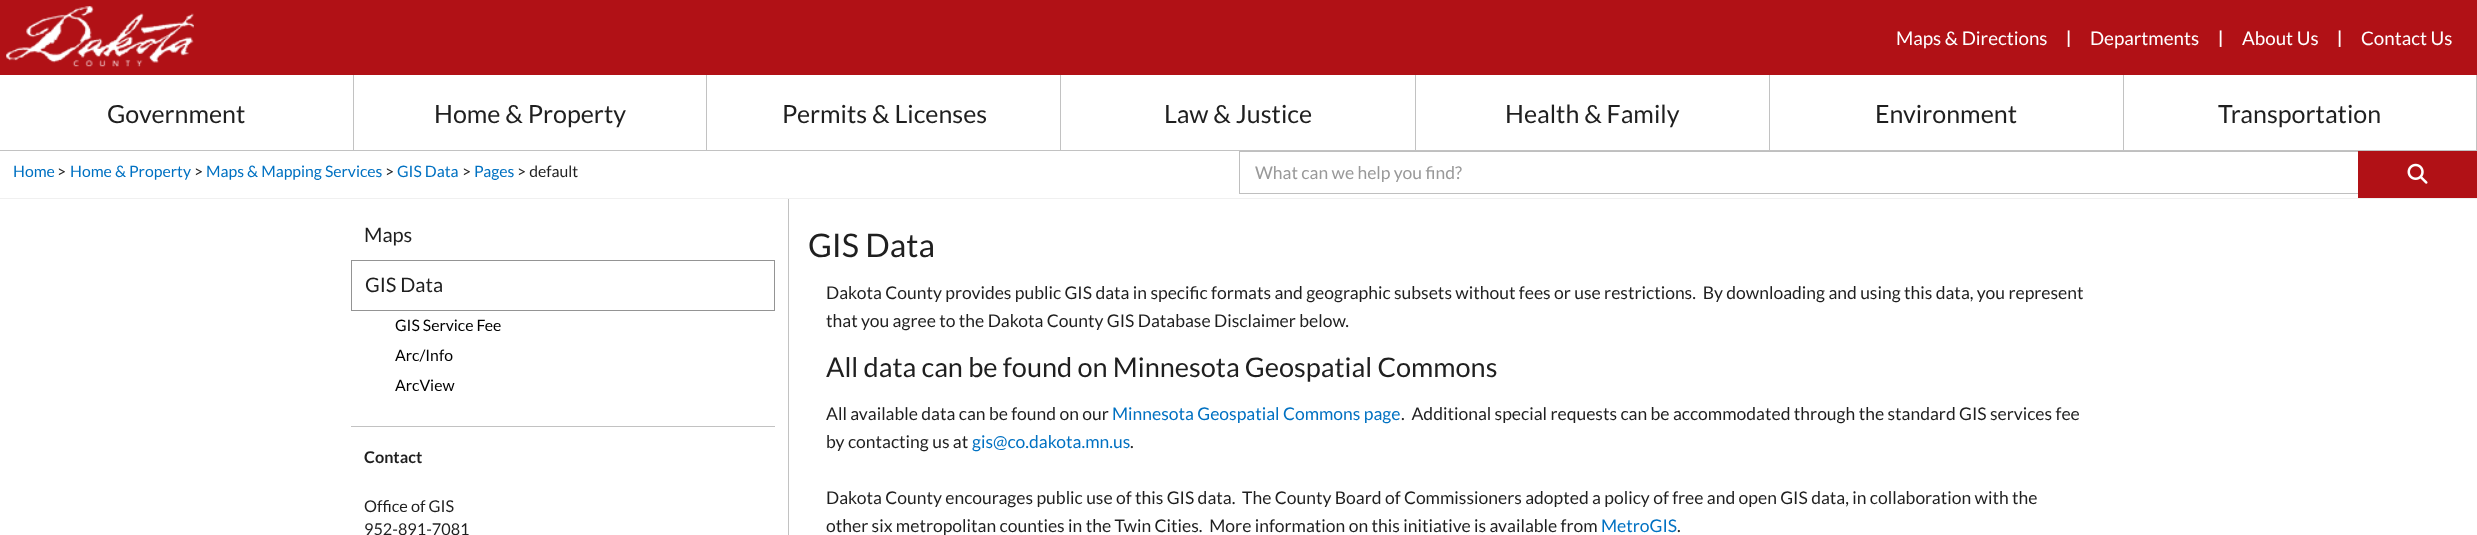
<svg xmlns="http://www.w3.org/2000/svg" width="2477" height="535">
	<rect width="100%" height="100%" fill="#FFFFFF" />
	<rect x="0" y="0" width="2477" height="75" fill="#B11116" />
	<image x="6" y="6" width="188" height="61" href="assets/img1.png" />
	<text x="1896" y="45" font-family="Lato" font-size="18.75" fill="#FFFFFF">Maps &amp; Directions</text>
	<text x="2066" y="44" font-family="Lato" font-size="17.5" font-weight="700" fill="#FFFFFF">|</text>
	<text x="2090" y="45" font-family="Lato" font-size="18.75" fill="#FFFFFF">Departments</text>
	<text x="2218" y="44" font-family="Lato" font-size="17.5" font-weight="700" fill="#FFFFFF">|</text>
	<text x="2242" y="45" font-family="Lato" font-size="18.75" fill="#FFFFFF">About Us</text>
	<text x="2337" y="44" font-family="Lato" font-size="17.5" font-weight="700" fill="#FFFFFF">|</text>
	<text x="2361" y="45" font-family="Lato" font-size="18.75" fill="#FFFFFF">Contact Us</text>
	<rect x="0" y="150" width="2477" height="1" fill="#C2C2C2" />
	<rect x="353" y="75" width="1" height="75" fill="#C2C2C2" />
	<text x="107" y="123" font-family="Lato" font-size="25" fill="#1F1F1F">Government</text>
	<rect x="706" y="75" width="1" height="75" fill="#C2C2C2" />
	<text x="434" y="123" font-family="Lato" font-size="25" fill="#1F1F1F">Home &amp; Property</text>
	<rect x="1060" y="75" width="1" height="75" fill="#C2C2C2" />
	<text x="782" y="123" font-family="Lato" font-size="25" fill="#1F1F1F">Permits &amp; Licenses</text>
	<rect x="1415" y="75" width="1" height="75" fill="#C2C2C2" />
	<text x="1164" y="123" font-family="Lato" font-size="25" fill="#1F1F1F">Law &amp; Justice</text>
	<rect x="1769" y="75" width="1" height="75" fill="#C2C2C2" />
	<text x="1505" y="123" font-family="Lato" font-size="25" fill="#1F1F1F">Health &amp; Family</text>
	<rect x="2123" y="75" width="1" height="75" fill="#C2C2C2" />
	<text x="1875" y="123" font-family="Lato" font-size="25" fill="#1F1F1F">Environment</text>
	<rect x="2476" y="75" width="1" height="75" fill="#C2C2C2" />
	<text x="2218" y="123" font-family="Lato" font-size="25" fill="#1F1F1F">Transportation</text>
	<rect x="0" y="198" width="2477" height="1" fill="#F0F0F0" />
	<text x="13" y="177" font-family="Lato" font-size="15.75" fill="#0071C2">Home</text>
	<text x="57" y="177" font-family="Lato" font-size="15.75" fill="#1F1F1F">&gt;</text>
	<text x="70" y="177" font-family="Lato" font-size="15.75" fill="#0071C2">Home &amp; Property</text>
	<text x="194" y="177" font-family="Lato" font-size="15.75" fill="#1F1F1F">&gt;</text>
	<text x="206" y="177" font-family="Lato" font-size="15.75" fill="#0071C2">Maps &amp; Mapping Services</text>
	<text x="385" y="177" font-family="Lato" font-size="15.75" fill="#1F1F1F">&gt;</text>
	<text x="397" y="177" font-family="Lato" font-size="15.75" fill="#0071C2">GIS Data</text>
	<text x="462" y="177" font-family="Lato" font-size="15.75" fill="#1F1F1F">&gt;</text>
	<text x="474" y="177" font-family="Lato" font-size="15.75" fill="#0071C2">Pages</text>
	<text x="517" y="177" font-family="Lato" font-size="15.75" fill="#1F1F1F">&gt; default</text>
	<rect x="1239.5" y="151.5" width="1119" height="42" fill="none" stroke="#BFBFBF" />
	<text x="1255" y="179" font-family="Lato" font-size="17.5" fill="#999999">What can we help you find?</text>
	<rect x="2358" y="151" width="119" height="47" fill="#B11116" />
	<image x="2407" y="163" width="21" height="21" href="assets/img2.png" />
	<rect x="788" y="199" width="1" height="336" fill="#C2C2C2" />
	<text x="364" y="242" font-family="Lato" font-size="20" fill="#1F1F1F">Maps</text>
	<rect x="351.5" y="260.5" width="423" height="50" fill="none" stroke="#949494" />
	<text x="365" y="292" font-family="Lato" font-size="20" fill="#1F1F1F">GIS Data</text>
	<g font-family="Lato" font-size="15.75" fill="#000000">
		<text x="395" y="331">GIS Service Fee</text>
		<text x="395" y="361">Arc/Info</text>
		<text x="395" y="391">ArcView</text>
	</g>
	<rect x="351" y="426" width="424" height="1" fill="#C2C2C2" />
	<text x="364" y="463" font-family="Lato" font-size="16.25" font-weight="700" fill="#1F1F1F">Contact</text>
	<g font-family="Lato" font-size="16.25" fill="#1F1F1F">
		<text x="364" y="512">Office of GIS</text>
		<text x="364" y="535">952-891-7081</text>
	</g>
	<text x="808" y="257" font-family="Lato" font-size="32.5" fill="#1F1F1F">GIS Data</text>
	<g font-family="Lato" font-size="17.5" fill="#1F1F1F">
		<text x="826" y="299" xml:space="preserve">Dakota County provides public GIS data in specific formats and geographic subsets without fees or use restrictions.  By downloading and using this data, you represent</text>
		<text x="826" y="327">that you agree to the Dakota County GIS Database Disclaimer below.</text>
	</g>
	<text x="826" y="377" font-family="Lato" font-size="27.1" fill="#1F1F1F">All data can be found on Minnesota Geospatial Commons</text>
	<text x="826" y="420" font-family="Lato" font-size="17.5" fill="#1F1F1F">All available data can be found on our</text>
	<text x="1112" y="420" font-family="Lato" font-size="17.5" fill="#0071C2">Minnesota Geospatial Commons page</text>
	<g font-family="Lato" font-size="17.5" fill="#1F1F1F">
		<text x="1401" y="420" xml:space="preserve">.  Additional special requests can be accommodated through the standard GIS services fee</text>
		<text x="826" y="448">by contacting us at</text>
	</g>
	<text x="972" y="448" font-family="Lato" font-size="17.5" fill="#0071C2">gis@co.dakota.mn.us</text>
	<g font-family="Lato" font-size="17.5" fill="#1F1F1F">
		<text x="1130" y="448">.</text>
		<text x="826" y="504" xml:space="preserve">Dakota County encourages public use of this GIS data.  The County Board of Commissioners adopted a policy of free and open GIS data, in collaboration with the</text>
		<text x="826" y="532" xml:space="preserve">other six metropolitan counties in the Twin Cities.  More information on this initiative is available from</text>
	</g>
	<text x="1601" y="532" font-family="Lato" font-size="17.5" fill="#0071C2">MetroGIS</text>
	<text x="1677" y="532" font-family="Lato" font-size="17.5" fill="#1F1F1F">.</text>
</svg>
